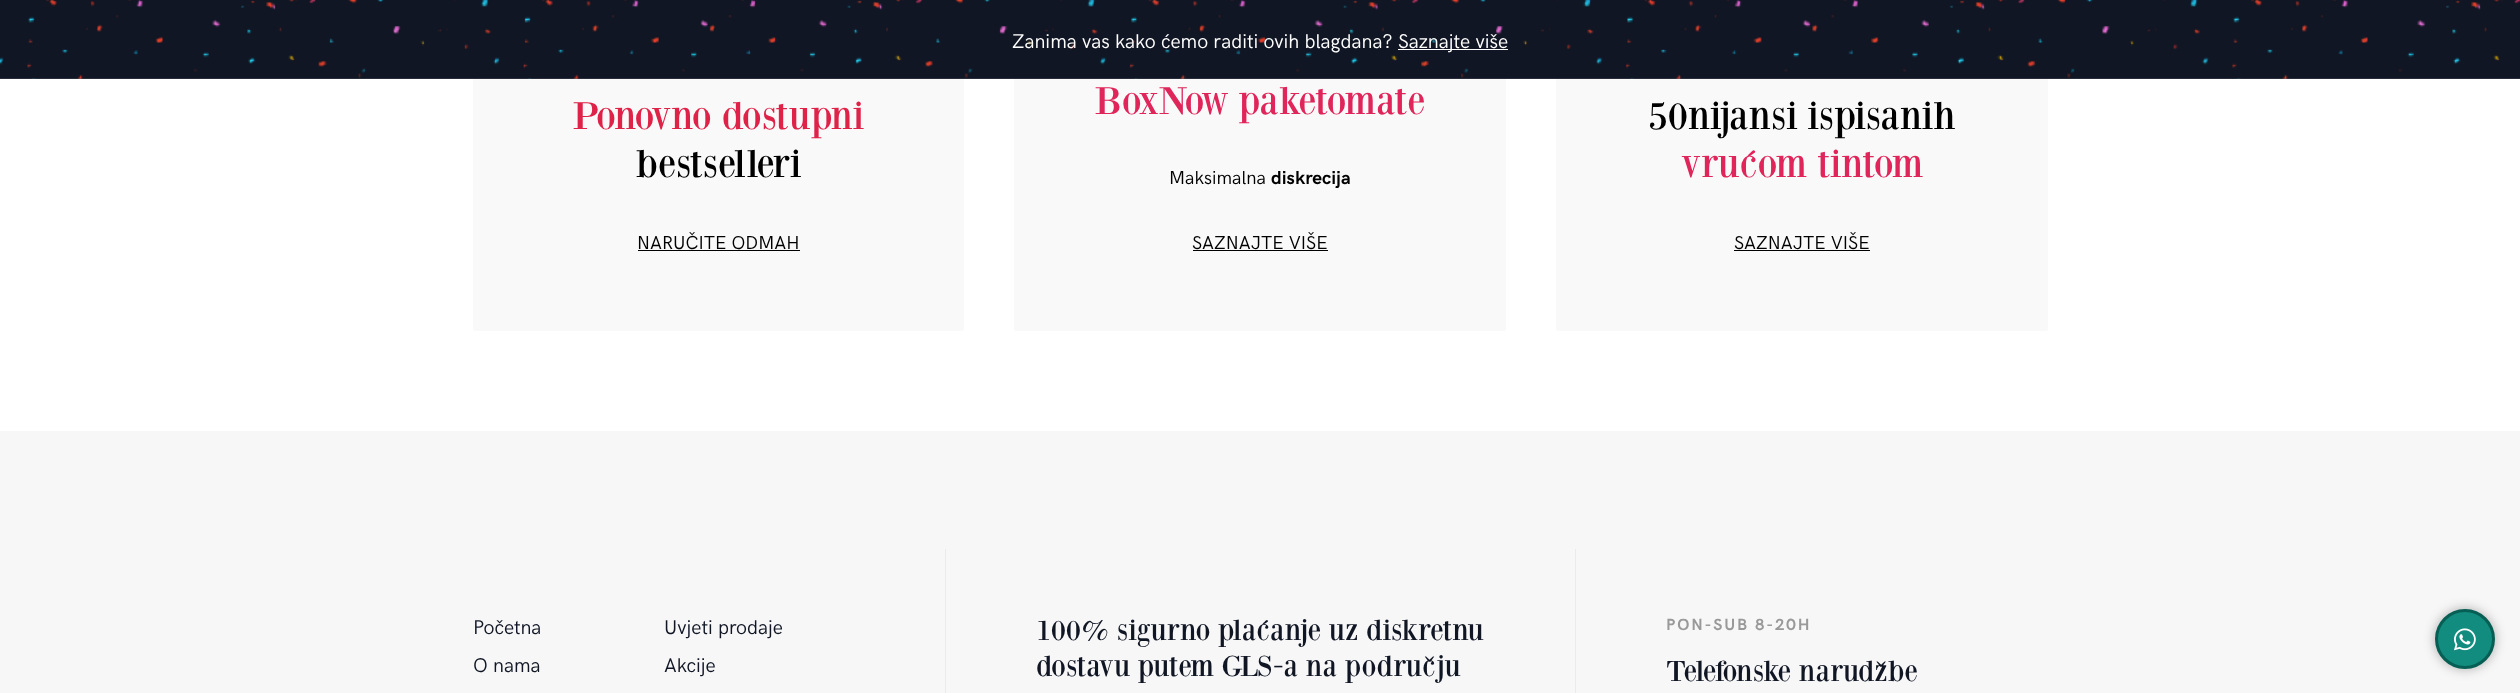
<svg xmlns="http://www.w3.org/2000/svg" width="2520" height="693">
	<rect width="100%" height="100%" fill="#FFFFFF" />
	<rect x="473" y="-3" width="491" height="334" rx="2.5" fill="#F9F9F9" />
	<rect x="1014" y="-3" width="492" height="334" rx="2.5" fill="#F9F9F9" />
	<rect x="1556" y="-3" width="492" height="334" rx="2.5" fill="#F9F9F9" />
	<rect x="0" y="0" width="2520" height="79" fill="#101624" />
	<image x="0" y="0" width="2520" height="79" href="assets/img1.png" />
	<rect x="0" y="78" width="2520" height="1" fill="#FFFFFF" fill-opacity="0.1" />
	<text x="1012" y="48" font-family="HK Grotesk" font-size="20" fill="#FFFFFF">Zanima vas kako ćemo raditi ovih blagdana?</text>
	<rect x="1398" y="49" width="110" height="1" fill="#FFFFFF" />
	<text x="1398" y="48" font-family="HK Grotesk" font-size="20" fill="#FFFFFF">Saznajte više</text>
	<text x="572" y="129" font-family="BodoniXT" font-size="40" font-weight="500" fill="#DF2248">Ponovno dostupni</text>
	<text x="636" y="177" font-family="BodoniXT" font-size="40" font-weight="500" fill="#000000">bestselleri</text>
	<text x="637" y="249" font-family="HK Grotesk" font-size="18.75" fill="#000000">NARUČITE ODMAH</text>
	<rect x="638" y="250" width="162" height="1" fill="#000000" />
	<text x="1095" y="114" font-family="BodoniXT" font-size="40" font-weight="500" fill="#DF255A">BoxNow paketomate</text>
	<text x="1169" y="184" font-family="HK Grotesk" font-size="18.75" fill="#000000">Maksimalna</text>
	<text x="1271" y="184" font-family="HK Grotesk" font-size="18.75" font-weight="700" fill="#000000">diskrecija</text>
	<text x="1192" y="249" font-family="HK Grotesk" font-size="18.75" fill="#000000">SAZNAJTE VIŠE</text>
	<rect x="1193" y="250" width="135" height="1" fill="#000000" />
	<text x="1648" y="129" font-family="BodoniXT" font-size="40" font-weight="500" fill="#000000">50nijansi ispisanih</text>
	<text x="1681" y="177" font-family="BodoniXT" font-size="40" font-weight="500" fill="#DF255A">vrućom tintom</text>
	<text x="1734" y="249" font-family="HK Grotesk" font-size="18.75" fill="#000000">SAZNAJTE VIŠE</text>
	<rect x="1734" y="250" width="136" height="1" fill="#000000" />
	<rect x="0" y="431" width="2520" height="262" fill="#F7F7F7" />
	<g font-family="HK Grotesk" font-size="20" fill="#101624">
		<text x="473" y="634">Početna</text>
		<text x="664" y="634">Uvjeti prodaje</text>
		<text x="473" y="672">O nama</text>
		<text x="664" y="672">Akcije</text>
	</g>
	<rect x="945" y="549" width="1" height="144" fill="#EBEBEB" />
	<g font-family="BodoniXT" font-size="30" font-weight="500" fill="#101624">
		<text x="1036" y="640">100% sigurno plaćanje uz diskretnu</text>
		<text x="1036" y="676">dostavu putem GLS-a na području</text>
	</g>
	<rect x="1575" y="549" width="1" height="144" fill="#EBEBEB" />
	<text x="1666" y="630" font-family="HK Grotesk" font-size="16.25" font-weight="700" letter-spacing="1.9" fill="#999999">PON-SUB 8-20H</text>
	<text x="1666" y="681" font-family="BodoniXT" font-size="30" font-weight="500" fill="#101624">Telefonske narudžbe</text>
	<rect x="2435" y="609" width="60" height="60" rx="30" fill="#000000" fill-opacity="0.3" filter="blur(6px)" />
	<circle cx="2465" cy="639" r="28.5" fill="#128C7E" stroke="#075E54" stroke-width="3" />
	<image x="2454" y="628" width="22" height="23" href="assets/img2.png" />
</svg>
